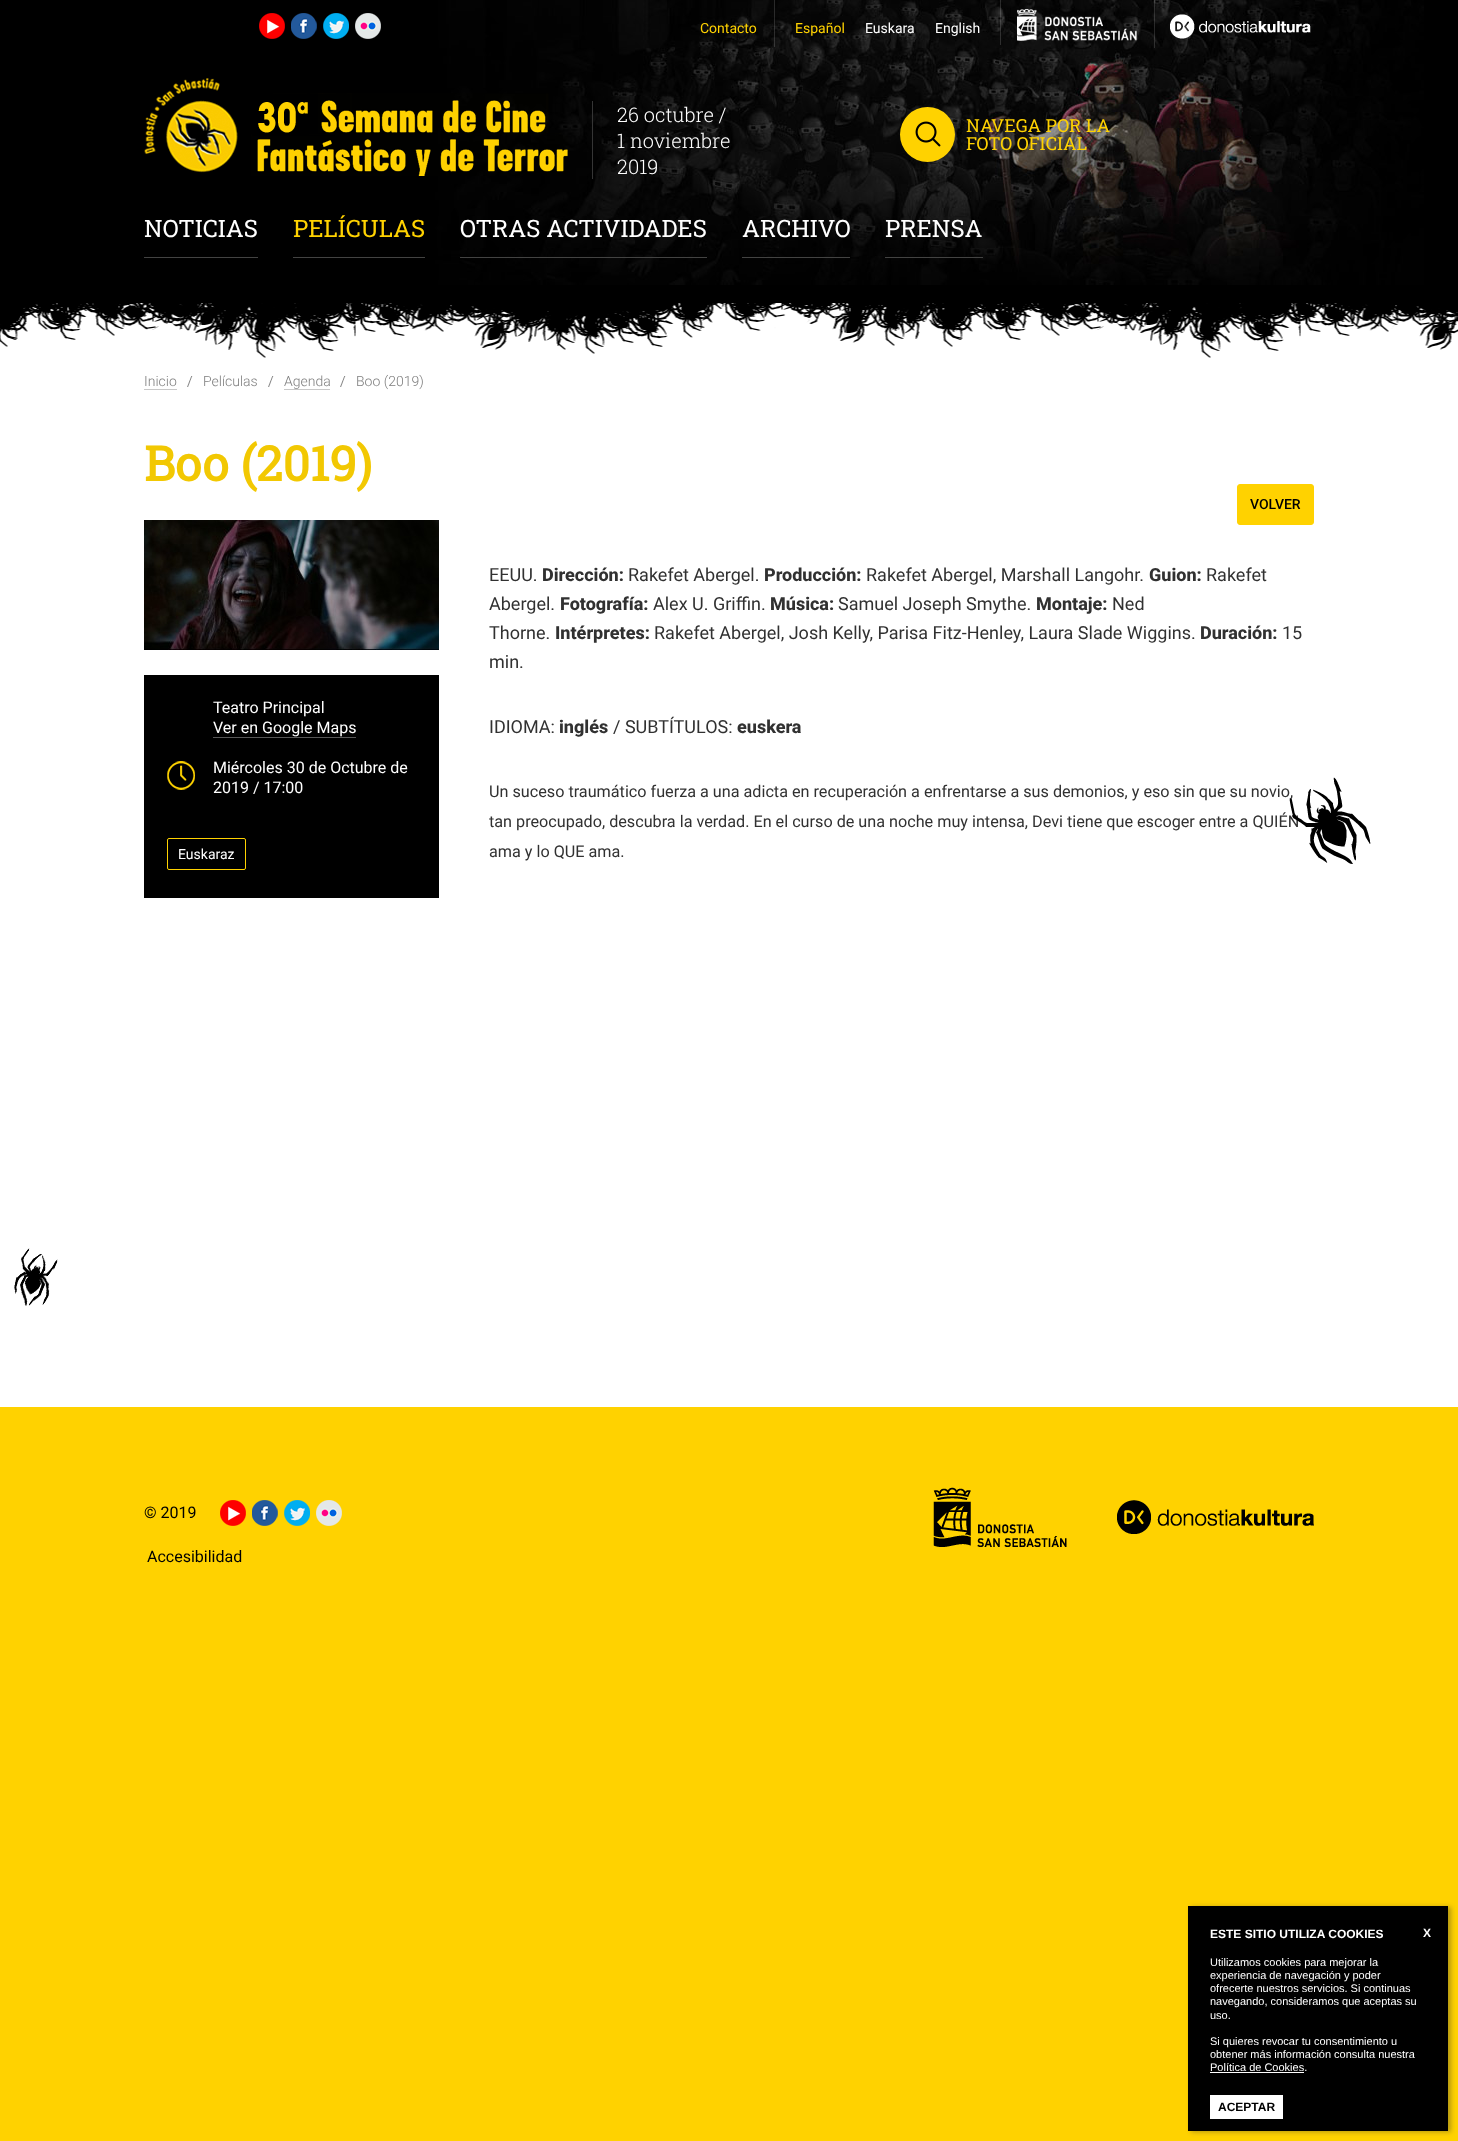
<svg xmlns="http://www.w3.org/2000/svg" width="1458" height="2141">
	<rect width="100%" height="100%" fill="#FFD200" />
	<rect x="0" y="0" width="1458" height="291" fill="#000000" />
	<image x="0" y="0" width="1458" height="358" href="assets/img1.png" />
	<image x="259" y="13" width="26" height="26" href="assets/img2.png" />
	<image x="291" y="13" width="26" height="26" href="assets/img3.png" />
	<image x="323" y="13" width="26" height="26" href="assets/img4.png" />
	<image x="355" y="13" width="26" height="26" href="assets/img5.png" />
	<rect x="774" y="0" width="1" height="47" fill="#FFFFFF" fill-opacity="0.15" />
	<g font-family="Roboto" font-size="14" fill="#FFD200">
		<text x="700" y="33">Contacto</text>
		<text x="795" y="33">Español</text>
	</g>
	<g font-family="Roboto" font-size="14" fill="#FFFFFF">
		<text x="865" y="33">Euskara</text>
		<text x="935" y="33">English</text>
	</g>
	<rect x="1000" y="0" width="1" height="45" fill="#FFFFFF" fill-opacity="0.15" />
	<image x="1017" y="9" width="120" height="32" href="assets/img6.png" />
	<rect x="1154" y="0" width="1" height="48" fill="#FFFFFF" fill-opacity="0.15" />
	<image x="1170" y="14" width="141" height="25" href="assets/img7.png" />
	<image x="144" y="78" width="424" height="98" href="assets/img8.png" />
	<rect x="592" y="101" width="1" height="78" fill="#353535" />
	<g font-family="Roboto Slab" font-size="20" font-weight="300" fill="#FFFFFF">
		<text x="617" y="122">26 octubre /</text>
		<text x="617" y="148">1 noviembre</text>
		<text x="617" y="174">2019</text>
	</g>
	<circle cx="927.5" cy="134.5" r="27.5" fill="#FFD200" />
	<image x="915" y="121" width="26" height="26" href="assets/img9.png" />
	<g font-family="Roboto Slab" font-size="18" fill="#FFD200">
		<text x="966" y="132">NAVEGA POR LA</text>
		<text x="966" y="150">FOTO OFICIAL</text>
	</g>
	<rect x="144" y="257" width="114" height="1" fill="#434342" />
	<text x="144" y="237" font-family="Roboto Slab" font-size="24" fill="#FFFFFF">NOTICIAS</text>
	<rect x="293" y="257" width="132" height="1" fill="#434342" />
	<text x="293" y="237" font-family="Roboto Slab" font-size="24" fill="#FFD200">PELÍCULAS</text>
	<rect x="460" y="257" width="247" height="1" fill="#434342" />
	<text x="460" y="237" font-family="Roboto Slab" font-size="24" fill="#FFFFFF">OTRAS ACTIVIDADES</text>
	<rect x="742" y="257" width="108" height="1" fill="#434342" />
	<text x="742" y="237" font-family="Roboto Slab" font-size="24" fill="#FFFFFF">ARCHIVO</text>
	<rect x="885" y="257" width="98" height="1" fill="#434342" />
	<text x="885" y="237" font-family="Roboto Slab" font-size="24" fill="#FFFFFF">PRENSA</text>
	<rect x="0" y="358" width="1458" height="1049" fill="#FFFFFF" />
	<image x="187" y="376" width="6" height="11" href="assets/img10.png" />
	<text x="144" y="386" font-family="Roboto" font-size="14" font-weight="300" fill="#7D7D7D">Inicio</text>
	<rect x="144" y="389" width="33" height="1" fill="#C8C8C8" />
	<image x="268" y="376" width="6" height="11" href="assets/img10.png" />
	<text x="203" y="386" font-family="Roboto" font-size="14" font-weight="300" fill="#7D7D7D">Películas</text>
	<image x="340" y="376" width="6" height="11" href="assets/img10.png" />
	<text x="284" y="386" font-family="Roboto" font-size="14" font-weight="300" fill="#7D7D7D">Agenda</text>
	<rect x="284" y="389" width="46" height="1" fill="#C8C8C8" />
	<text x="356" y="386" font-family="Roboto" font-size="14" font-weight="300" fill="#7D7D7D">Boo (2019)</text>
	<text x="144" y="481" font-family="Roboto Slab" font-size="48" font-weight="700" fill="#F2C802">Boo (2019)</text>
	<rect x="1237.5" y="484.5" width="76" height="40" rx="2.5" fill="#FFD200" stroke="#FFD200" />
	<text x="1250" y="509" font-family="Roboto" font-size="14" font-weight="500" fill="#000000">VOLVER</text>
	<image x="144" y="520" width="295" height="130" href="assets/img11.png" />
	<rect x="144" y="675" width="295" height="223" fill="#000000" />
	<g font-family="Roboto" font-size="16" fill="#FFFFFF">
		<text x="213" y="713">Teatro Principal</text>
		<text x="213" y="733">Ver en Google Maps</text>
	</g>
	<rect x="213" y="737" width="143" height="1" fill="#575757" />
	<image x="167" y="761" width="28" height="29" href="assets/img12.png" />
	<g font-family="Roboto" font-size="16" fill="#FFFFFF">
		<text x="213" y="773">Miércoles 30 de Octubre de</text>
		<text x="213" y="793">2019 / 17:00</text>
	</g>
	<rect x="167.5" y="838.5" width="78" height="31" rx="1.5" fill="none" stroke="#FFD200" />
	<text x="178" y="859" font-family="Roboto" font-size="14" fill="#FFFFFF">Euskaraz</text>
	<text x="489" y="581" font-family="Roboto" font-size="18" fill="#313131">EEUU.</text>
	<text x="542" y="581" font-family="Roboto" font-size="18" font-weight="800" fill="#313131">Dirección:</text>
	<text x="628" y="581" font-family="Roboto" font-size="18" fill="#313131">Rakefet Abergel.</text>
	<text x="764" y="581" font-family="Roboto" font-size="18" font-weight="800" fill="#313131">Producción:</text>
	<text x="866" y="581" font-family="Roboto" font-size="18" fill="#313131">Rakefet Abergel, Marshall Langohr.</text>
	<text x="1149" y="581" font-family="Roboto" font-size="18" font-weight="800" fill="#313131">Guion:</text>
	<g font-family="Roboto" font-size="18" fill="#313131">
		<text x="1206" y="581">Rakefet</text>
		<text x="489" y="610">Abergel.</text>
	</g>
	<text x="560" y="610" font-family="Roboto" font-size="18" font-weight="800" fill="#313131">Fotografía:</text>
	<text x="653" y="610" font-family="Roboto" font-size="18" fill="#313131">Alex U. Griffin.</text>
	<text x="770" y="610" font-family="Roboto" font-size="18" font-weight="800" fill="#313131">Música:</text>
	<text x="838" y="610" font-family="Roboto" font-size="18" fill="#313131">Samuel Joseph Smythe.</text>
	<text x="1036" y="610" font-family="Roboto" font-size="18" font-weight="800" fill="#313131">Montaje:</text>
	<g font-family="Roboto" font-size="18" fill="#313131">
		<text x="1112" y="610">Ned</text>
		<text x="489" y="639">Thorne.</text>
	</g>
	<text x="555" y="639" font-family="Roboto" font-size="18" font-weight="800" fill="#313131">Intérpretes:</text>
	<text x="654" y="639" font-family="Roboto" font-size="18" fill="#313131">Rakefet Abergel, Josh Kelly, Parisa Fitz-Henley, Laura Slade Wiggins.</text>
	<text x="1200" y="639" font-family="Roboto" font-size="18" font-weight="800" fill="#313131">Duración:</text>
	<g font-family="Roboto" font-size="18" fill="#313131">
		<text x="1282" y="639">15</text>
		<text x="489" y="668">min.</text>
		<text x="489" y="733">IDIOMA:</text>
	</g>
	<text x="559" y="733" font-family="Roboto" font-size="18" font-weight="800" fill="#313131">inglés</text>
	<text x="613" y="733" font-family="Roboto" font-size="18" fill="#313131">/ SUBTÍTULOS:</text>
	<text x="737" y="733" font-family="Roboto" font-size="18" font-weight="800" fill="#313131">euskera</text>
	<g font-family="Roboto" font-size="16.2" fill="#313131">
		<text x="489" y="797">Un suceso traumático fuerza a una adicta en recuperación a enfrentarse a sus demonios, y eso sin que su novio,</text>
		<text x="489" y="827">tan preocupado, descubra la verdad. En el curso de una noche muy intensa, Devi tiene que escoger entre a QUIÉN</text>
		<text x="489" y="857">ama y lo QUE ama.</text>
	</g>
	<image x="1289" y="777" width="82" height="87" href="assets/img13.png" />
	<image x="14" y="1248" width="44" height="58" href="assets/img14.png" />
	<text x="144" y="1518" font-family="Roboto" font-size="16" fill="#000000">© 2019</text>
	<image x="220" y="1500" width="26" height="26" href="assets/img15.png" />
	<image x="252" y="1500" width="26" height="26" href="assets/img16.png" />
	<image x="284" y="1500" width="26" height="26" href="assets/img17.png" />
	<image x="316" y="1500" width="26" height="26" href="assets/img18.png" />
	<text x="147" y="1562" font-family="Roboto" font-size="16" fill="#000000">Accesibilidad</text>
	<image x="933" y="1487" width="134" height="60" href="assets/img19.png" />
	<image x="1117" y="1500" width="197" height="34" href="assets/img20.png" />
	<rect x="1191" y="1907" width="260" height="225" fill="#323232" fill-opacity="0.37" filter="blur(2.5px)" />
	<rect x="1188" y="1906" width="260" height="225" fill="#000000" />
	<g font-family="Liberation Sans" font-size="12" font-weight="700" fill="#FFFFFF">
		<text x="1210" y="1938">ESTE SITIO UTILIZA COOKIES</text>
		<text x="1423" y="1937">X</text>
	</g>
	<g font-family="Liberation Sans" font-size="11" fill="#FFFFFF">
		<text x="1210" y="1966">Utilizamos cookies para mejorar la</text>
		<text x="1210" y="1979">experiencia de navegación y poder</text>
		<text x="1210" y="1992">ofrecerte nuestros servicios. Si continuas</text>
		<text x="1210" y="2005">navegando, consideramos que aceptas su</text>
		<text x="1210" y="2019">uso.</text>
		<text x="1210" y="2045">Si quieres revocar tu consentimiento u</text>
		<text x="1210" y="2058">obtener más información consulta nuestra</text>
		<text x="1210" y="2071">Política de Cookies.</text>
	</g>
	<rect x="1210" y="2072" width="94" height="1" fill="#FFFFFF" />
	<rect x="1210" y="2095" width="73" height="24" fill="#FFFFFF" />
	<text x="1218" y="2111" font-family="Liberation Sans" font-size="12" font-weight="700" fill="#000000">ACEPTAR</text>
</svg>
